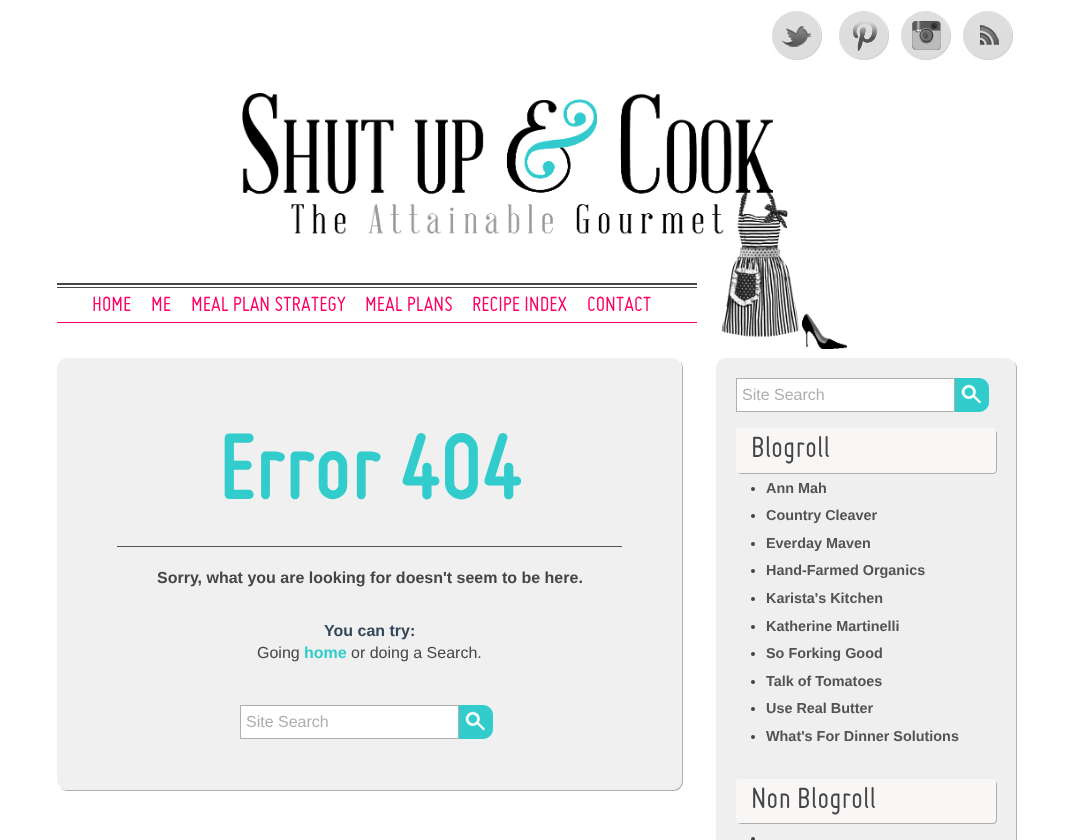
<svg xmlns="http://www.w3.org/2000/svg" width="1074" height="840">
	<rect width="100%" height="100%" fill="#FFFFFF" />
	<image x="772" y="11" width="50" height="49" href="assets/img1.png" />
	<image x="839" y="11" width="50" height="49" href="assets/img2.png" />
	<image x="901" y="11" width="50" height="49" href="assets/img3.png" />
	<image x="963" y="11" width="50" height="49" href="assets/img4.png" />
	<image x="242" y="93" width="605" height="256" href="assets/img5.png" />
	<image x="57" y="283" width="640" height="5" href="assets/img6.png" />
	<rect x="57" y="322" width="640" height="1" fill="#FF0066" />
	<g font-family="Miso" font-size="22.5" font-style="italic" fill="#FF0066">
		<text x="92" y="311">HOME</text>
		<text x="151" y="311">ME</text>
		<text x="191" y="311">MEAL PLAN STRATEGY</text>
		<text x="365" y="311">MEAL PLANS</text>
		<text x="472" y="311">RECIPE INDEX</text>
		<text x="587" y="311">CONTACT</text>
	</g>
	<path d="M60 788C62 790 65 791 68 791H673C679 791 683 787 683 781V369C683 366 682 363 680 361C681 363 682 365 682 368V780C682 786 678 790 672 790H67C64 790 62 789 60 788Z" fill="#AEAEAE" />
	<rect x="57" y="358" width="625" height="432" rx="10" fill="#EAEAEA" fill-opacity="0.7" />
	<rect x="117" y="546" width="505" height="1" fill="#535353" />
	<text x="218" y="499" font-family="Miso" font-size="98.5" font-weight="700" font-style="italic" fill="#33CCCC">Error 404</text>
	<text x="157" y="583" font-family="Liberation Sans" font-size="16" font-weight="700" fill="#464545">Sorry, what you are looking for doesn't seem to be here.</text>
	<text x="324" y="636" font-family="Liberation Sans" font-size="16" font-weight="700" fill="#334759">You can try:</text>
	<text x="257" y="658" font-family="Liberation Sans" font-size="16" fill="#464545">Going</text>
	<text x="304" y="658" font-family="Liberation Sans" font-size="16" font-weight="700" fill="#33CCCC">home</text>
	<text x="351" y="658" font-family="Liberation Sans" font-size="16" fill="#464545">or doing a Search.</text>
	<rect x="240.5" y="705.5" width="218" height="33" fill="#FFFFFF" stroke="#AEAEAE" />
	<text x="246" y="727" font-family="Liberation Sans" font-size="16" fill="#AEAEAE">Site Search</text>
	<path d="M459 705H483C488.5 705 493 709.5 493 715V729C493 734.5 488.5 739 483 739H459Z" fill="#33CCCC" />
	<image x="465" y="711" width="20" height="20" href="assets/img7.png" />
	<path d="M719 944C721 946 724 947 727 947H1007C1013 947 1017 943 1017 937V369C1017 366 1016 363 1014 361C1015 363 1016 365 1016 368V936C1016 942 1012 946 1006 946H726C723 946 721 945 719 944Z" fill="#AEAEAE" />
	<rect x="716" y="358" width="300" height="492" rx="10" fill="#D8D8D8" fill-opacity="0.4" />
	<rect x="736.5" y="378.5" width="218" height="33" fill="#FFFFFF" stroke="#AEAEAE" />
	<text x="742" y="400" font-family="Liberation Sans" font-size="16" fill="#AEAEAE">Site Search</text>
	<path d="M955 378H979C984.5 378 989 382.5 989 388V402C989 407.5 984.5 412 979 412H955Z" fill="#33CCCC" />
	<image x="961" y="384" width="20" height="20" href="assets/img7.png" />
	<path d="M738 472C738 473 740 474 741 474H993C995 474 997 472 997 470V433C997 432 996 430 995 430L996 432V469C996 471 994 473 992 473H740Z" fill="#AEAEAE" />
	<rect x="736" y="428" width="260" height="45" rx="4" fill="#F9F6F6" />
	<text x="751" y="457" font-family="Miso" font-size="32" font-style="italic" fill="#464545">Blogroll</text>
	<circle cx="753" cy="489" r="2" fill="#464545" />
	<text x="766" y="493" font-family="Liberation Sans" font-size="14.4" font-weight="700" fill="#535353">Ann Mah</text>
	<circle cx="753" cy="516" r="2" fill="#464545" />
	<text x="766" y="520" font-family="Liberation Sans" font-size="14.4" font-weight="700" fill="#535353">Country Cleaver</text>
	<circle cx="753" cy="544" r="2" fill="#464545" />
	<text x="766" y="548" font-family="Liberation Sans" font-size="14.4" font-weight="700" fill="#535353">Everday Maven</text>
	<circle cx="753" cy="571" r="2" fill="#464545" />
	<text x="766" y="575" font-family="Liberation Sans" font-size="14.4" font-weight="700" fill="#535353">Hand-Farmed Organics</text>
	<circle cx="753" cy="599" r="2" fill="#464545" />
	<text x="766" y="603" font-family="Liberation Sans" font-size="14.4" font-weight="700" fill="#535353">Karista's Kitchen</text>
	<circle cx="753" cy="627" r="2" fill="#464545" />
	<text x="766" y="631" font-family="Liberation Sans" font-size="14.4" font-weight="700" fill="#535353">Katherine Martinelli</text>
	<circle cx="753" cy="654" r="2" fill="#464545" />
	<text x="766" y="658" font-family="Liberation Sans" font-size="14.4" font-weight="700" fill="#535353">So Forking Good</text>
	<circle cx="753" cy="682" r="2" fill="#464545" />
	<text x="766" y="686" font-family="Liberation Sans" font-size="14.4" font-weight="700" fill="#535353">Talk of Tomatoes</text>
	<circle cx="753" cy="709" r="2" fill="#464545" />
	<text x="766" y="713" font-family="Liberation Sans" font-size="14.4" font-weight="700" fill="#535353">Use Real Butter</text>
	<circle cx="753" cy="737" r="2" fill="#464545" />
	<text x="766" y="741" font-family="Liberation Sans" font-size="14.4" font-weight="700" fill="#535353">What's For Dinner Solutions</text>
	<path d="M738 822C738 823 740 824 741 824H993C995 824 997 822 997 820V784C997 783 996 781 995 781L996 783V819C996 821 994 823 992 823H740Z" fill="#AEAEAE" />
	<rect x="736" y="779" width="260" height="44" rx="4" fill="#F9F6F6" />
	<text x="751" y="808" font-family="Miso" font-size="32" font-style="italic" fill="#464545">Non Blogroll</text>
	<circle cx="753" cy="839" r="2" fill="#464545" />
</svg>
